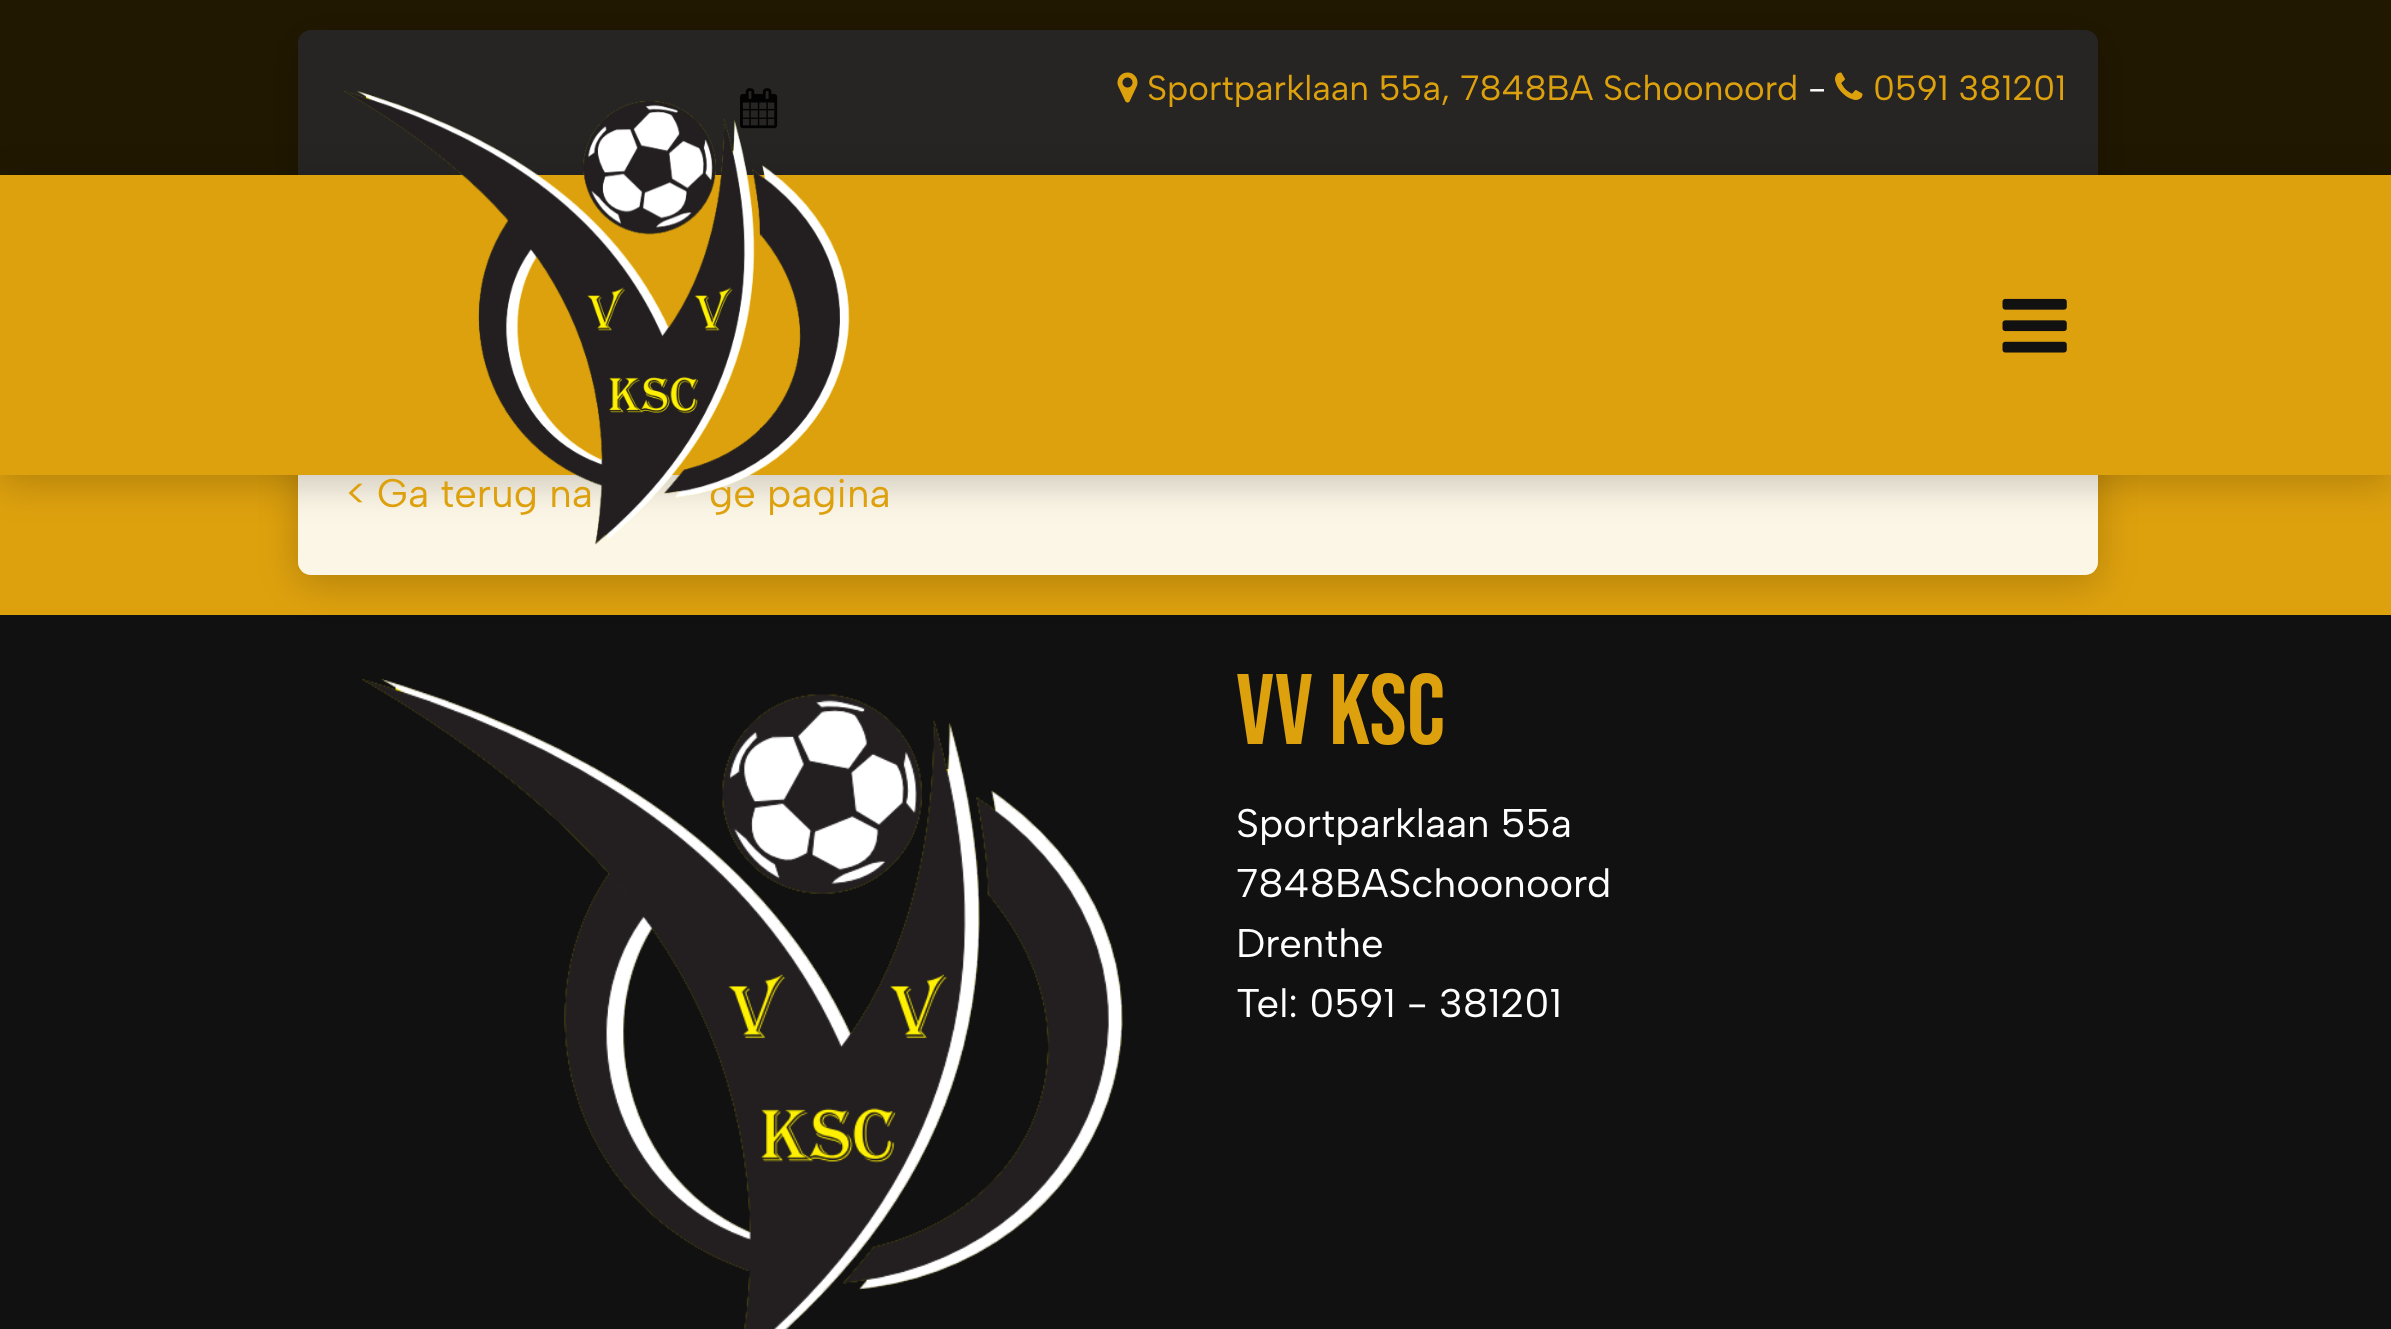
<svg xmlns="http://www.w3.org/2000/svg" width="2391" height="1329">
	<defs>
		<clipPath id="clip1"><path d="M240 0H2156V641H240ZM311 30H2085C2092 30 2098 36 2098 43V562C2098 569 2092 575 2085 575H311C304 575 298 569 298 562V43C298 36 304 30 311 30Z" clip-rule="evenodd" /></clipPath>
	</defs>
	<rect width="100%" height="100%" fill="#DEA10E" />
	<rect x="0" y="615" width="2391" height="714" fill="#111111" />
	<g clip-path="url(#clip1)">
		<rect x="298" y="38" width="1800" height="545" rx="13" fill="#000000" fill-opacity="0.2" filter="blur(19px)" />
	</g>
	<rect x="298" y="30" width="1800" height="545" rx="13" fill="#FFFFFF" fill-opacity="0.9" />
	<image x="740" y="88" width="38" height="41" href="assets/img5.png" />
	<rect x="0" y="0" width="2391" height="175" fill="#000000" fill-opacity="0.85" />
	<image x="1117" y="72" width="21" height="31" href="assets/img1.png" />
	<text x="1147" y="100" font-family="Albert Sans" font-size="35" fill="#DEA10E">Sportparklaan 55a, 7848BA Schoonoord</text>
	<text x="1808" y="100" font-family="Albert Sans" font-size="35" fill="#FFFFFF">-</text>
	<image x="1835" y="72" width="28" height="28" href="assets/img2.png" />
	<text x="1873" y="100" font-family="Albert Sans" font-size="35" fill="#DEA10E">0591 381201</text>
	<rect x="0" y="183" width="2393" height="300" fill="#000000" fill-opacity="0.2" filter="blur(19px)" />
	<rect x="0" y="175" width="2391" height="300" fill="#DEA10E" />
	<g font-family="Albert Sans" font-size="40" fill="#DEA10E">
		<text x="346" y="507">&lt; Ga terug na</text>
		<text x="709" y="507">ge pagina</text>
	</g>
	<image x="344" y="90" width="506" height="455" href="assets/img3.png" />
	<image x="2002" y="298" width="65" height="55" href="assets/img4.png" />
	<image x="362" y="678" width="761" height="651" href="assets/img6.png" />
	<text x="1236" y="744" font-family="Bebas Neue" font-size="100" fill="#DEA10E">VV KSC</text>
	<g font-family="Albert Sans" font-size="40" fill="#FFFFFF">
		<text x="1236" y="837">Sportparklaan 55a</text>
		<text x="1236" y="897">7848BASchoonoord</text>
		<text x="1236" y="957">Drenthe</text>
		<text x="1236" y="1017">Tel: 0591 - 381201</text>
	</g>
</svg>
